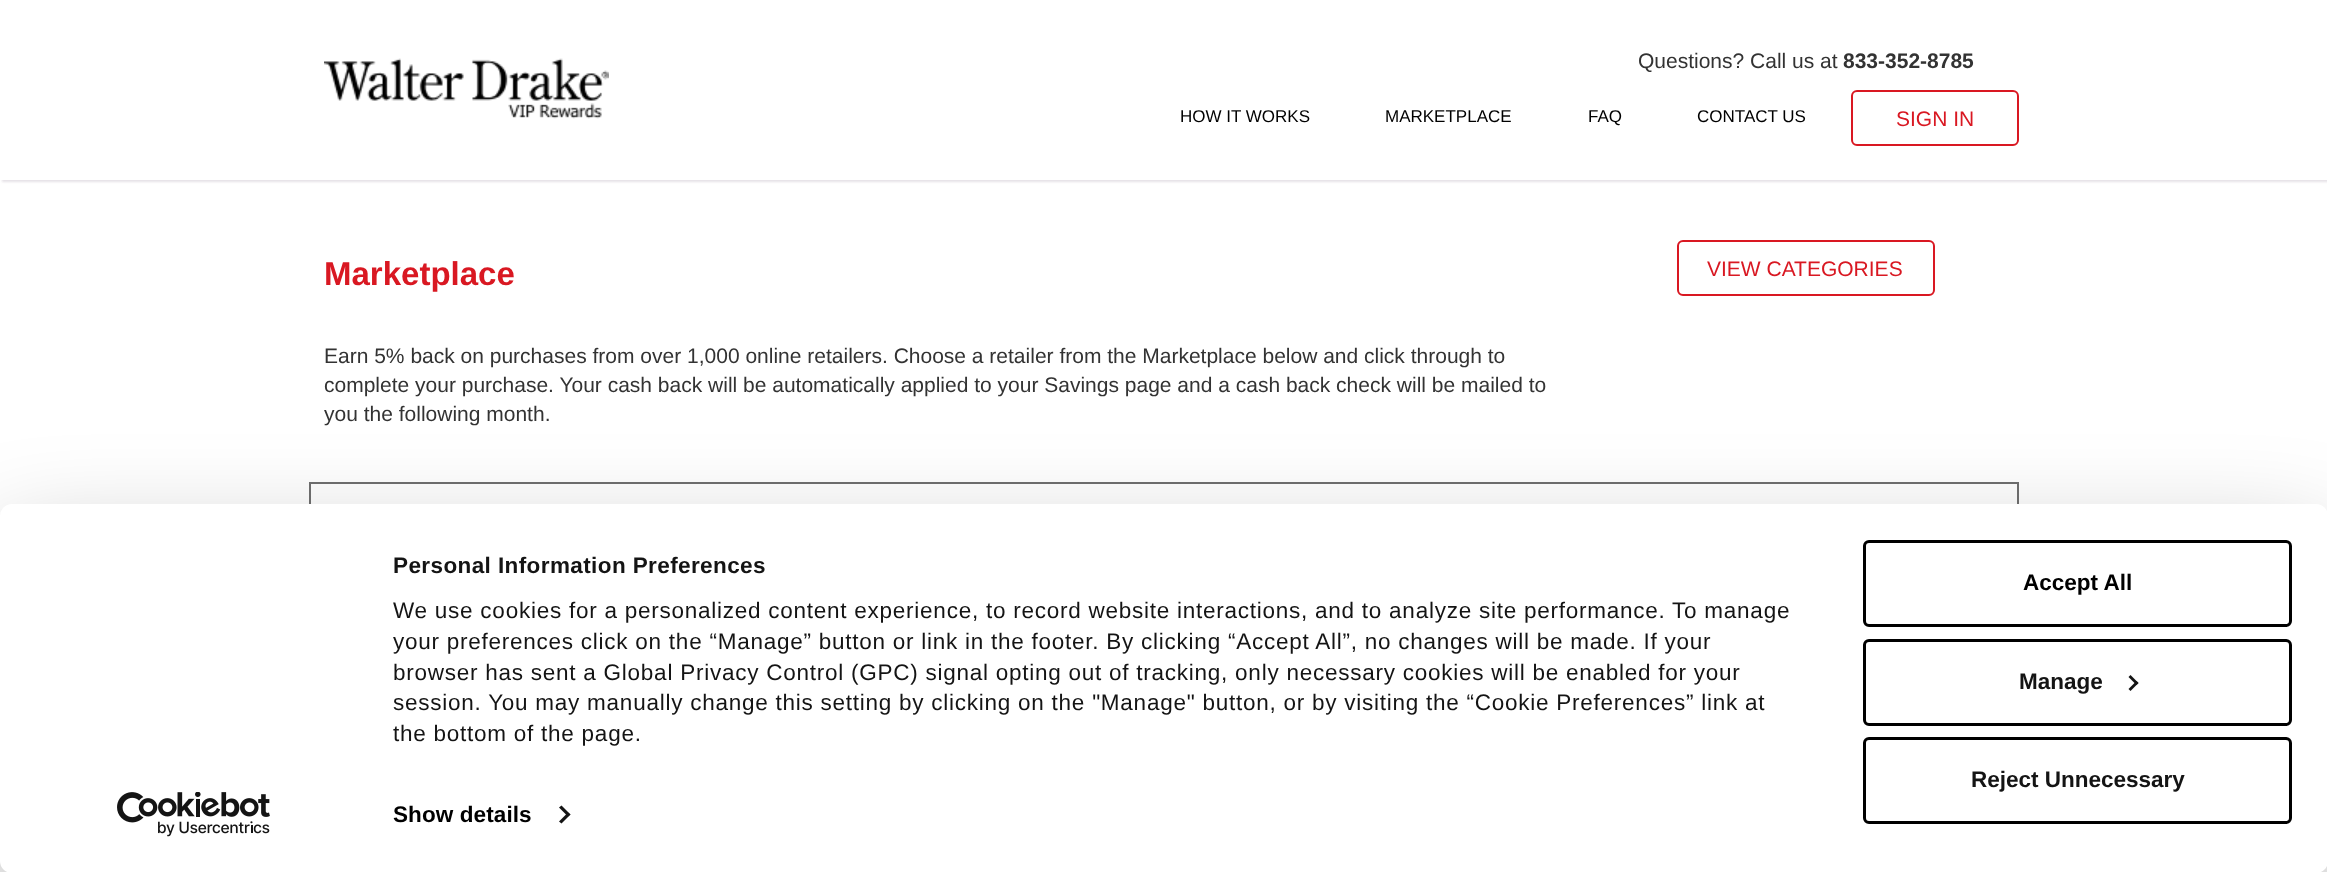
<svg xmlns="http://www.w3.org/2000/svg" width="2327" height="872">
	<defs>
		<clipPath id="clip1"><rect x="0" y="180" width="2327" height="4" /></clipPath>
	</defs>
	<rect width="100%" height="100%" fill="#FFFFFF" />
	<g clip-path="url(#clip1)">
		<rect x="2" y="2" width="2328" height="180" fill="#E6E2E7" filter="blur(1px)" />
	</g>
	<image x="324" y="58" width="285" height="61" href="assets/img1.png" />
	<text x="1638" y="68" font-family="Arimo" font-size="21" fill="#333333">Questions? Call us at</text>
	<text x="1843" y="68" font-family="Arimo" font-size="21" font-weight="700" fill="#333333">833-352-8785</text>
	<g font-family="Arimo" font-size="17" fill="#000000">
		<text x="1180" y="122">HOW IT WORKS</text>
		<text x="1385" y="122">MARKETPLACE</text>
		<text x="1588" y="122">FAQ</text>
		<text x="1697" y="122">CONTACT US</text>
	</g>
	<rect x="1852" y="91" width="166" height="54" rx="5" fill="none" stroke="#D91822" stroke-width="2" />
	<text x="1896" y="126" font-family="Arimo" font-size="21" fill="#D91822">SIGN IN</text>
	<text x="324" y="285" font-family="Arimo" font-size="33" font-weight="700" fill="#D91822">Marketplace</text>
	<g font-family="Arimo" font-size="21" fill="#333333">
		<text x="324" y="363">Earn 5% back on purchases from over 1,000 online retailers. Choose a retailer from the Marketplace below and click through to</text>
		<text x="324" y="392">complete your purchase. Your cash back will be automatically applied to your Savings page and a cash back check will be mailed to</text>
		<text x="324" y="421">you the following month.</text>
	</g>
	<rect x="1678" y="241" width="256" height="54" rx="5" fill="none" stroke="#D91822" stroke-width="2" />
	<text x="1707" y="276" font-family="Arimo" font-size="21" fill="#D91822">VIEW CATEGORIES</text>
	<rect x="310" y="483" width="1708" height="337" fill="none" stroke="#707070" stroke-width="2" />
	<rect x="0" y="549" width="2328" height="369" rx="12" fill="#000000" fill-opacity="0.3" filter="blur(52.5px)" />
	<rect x="0" y="504" width="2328" height="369" rx="12" fill="#FFFFFF" />
	<text x="393" y="573" font-family="Liberation Sans" font-size="22.5" font-weight="700" letter-spacing="0.4" fill="#141414">Personal Information Preferences</text>
	<g font-family="Liberation Sans" font-size="22.5" letter-spacing="0.75" fill="#141414">
		<text x="393" y="618">We use cookies for a personalized content experience, to record website interactions, and to analyze site performance. To manage</text>
		<text x="393" y="649">your preferences click on the “Manage” button or link in the footer. By clicking “Accept All”, no changes will be made. If your</text>
		<text x="393" y="680">browser has sent a Global Privacy Control (GPC) signal opting out of tracking, only necessary cookies will be enabled for your</text>
		<text x="393" y="710">session. You may manually change this setting by clicking on the "Manage" button, or by visiting the “Cookie Preferences” link at</text>
		<text x="393" y="741">the bottom of the page.</text>
	</g>
	<text x="393" y="822" font-family="Liberation Sans" font-size="22.5" font-weight="700" letter-spacing="0.1" fill="#000000">Show details</text>
	<path d="M561.5 805.5L570.5 814.5L568 816.5L559 807.5Z" fill="#141414" />
	<path d="M568 812.5L570.5 814.5L561.5 823.5L559 821.5Z" fill="#141414" />
	<rect x="1864.5" y="541.5" width="426" height="84" rx="4.5" fill="none" stroke="#000000" stroke-width="3" />
	<text x="2023" y="590" font-family="Liberation Sans" font-size="22.5" font-weight="700" fill="#000000">Accept All</text>
	<rect x="1864.5" y="640.5" width="426" height="84" rx="4.5" fill="none" stroke="#000000" stroke-width="3" />
	<text x="2019" y="689" font-family="Liberation Sans" font-size="22.5" font-weight="700" fill="#141414">Manage</text>
	<path d="M2130.5 675L2138.5 683L2136.5 685L2128.5 677Z" fill="#141414" />
	<path d="M2136.5 681L2138.5 683L2130.5 691L2128.5 689Z" fill="#141414" />
	<rect x="1864.5" y="738.5" width="426" height="84" rx="4.5" fill="none" stroke="#000000" stroke-width="3" />
	<text x="1971" y="787" font-family="Liberation Sans" font-size="22.5" font-weight="700" fill="#141414">Reject Unnecessary</text>
	<image x="117" y="792" width="153" height="45" href="assets/img2.png" />
</svg>
